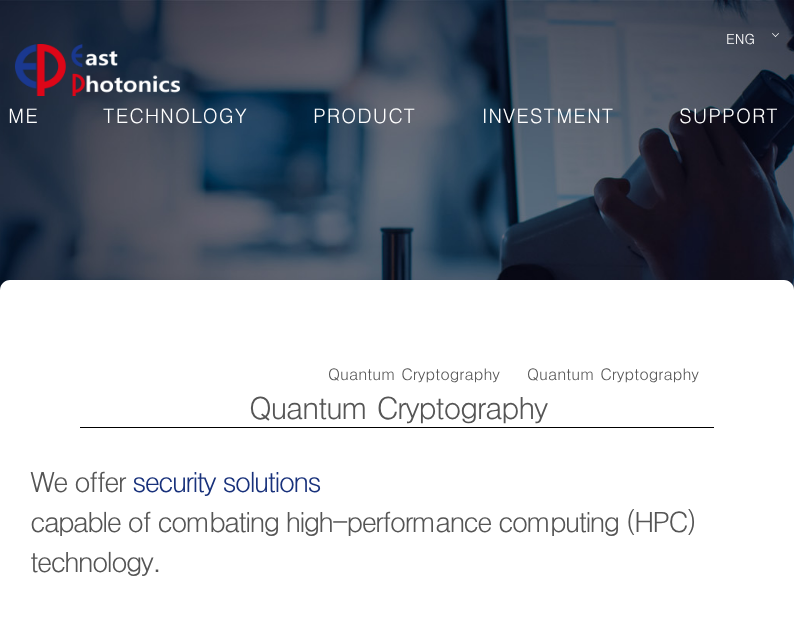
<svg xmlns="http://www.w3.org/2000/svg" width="794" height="624">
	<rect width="100%" height="100%" fill="#FFFFFF" />
	<image x="0" y="0" width="794" height="290" href="assets/img2.png" />
	<text x="726" y="44" font-family="Dotum" font-size="14" fill="#FFFFFF">ENG</text>
	<path d="M778.5 33L779 33.5L775.5 37L775 36.5Z" fill="#FFFFFF" />
	<path d="M772.5 33L776 36.5L775.5 37L772 33.5Z" fill="#FFFFFF" />
	<g font-family="Dotum" font-size="20" letter-spacing="1" fill="#FFFFFF">
		<text x="8" y="123">ME</text>
		<text x="103" y="123">TECHNOLOGY</text>
		<text x="313" y="123">PRODUCT</text>
		<text x="482" y="123">INVESTMENT</text>
		<text x="679" y="123">SUPPORT</text>
	</g>
	<image x="15" y="44" width="165" height="52" href="assets/img1.png" />
	<path d="M10 280H784C789.5 280 794 284.5 794 290V460H0V290C0 284.5 4.5 280 10 280Z" fill="#FFFFFF" />
	<g font-family="Dotum" font-size="16" fill="#555555">
		<text x="328" y="380">Quantum Cryptography</text>
		<text x="527" y="380">Quantum Cryptography</text>
	</g>
	<rect x="80" y="427" width="634" height="1" fill="#000000" />
	<text x="249" y="419" font-family="Dotum" font-size="30.5" letter-spacing="-1.5" fill="#555555">Quantum Cryptography</text>
	<text x="30" y="492" font-family="Dotum" font-size="28" letter-spacing="-2" fill="#555555">We offer</text>
	<text x="132" y="492" font-family="Dotum" font-size="28" letter-spacing="-2" fill="#18317B">security solutions</text>
	<g font-family="Dotum" font-size="28" letter-spacing="-2" fill="#555555">
		<text x="30" y="532">capable of combating high-performance computing (HPC)</text>
		<text x="30" y="572">technology.</text>
	</g>
</svg>
